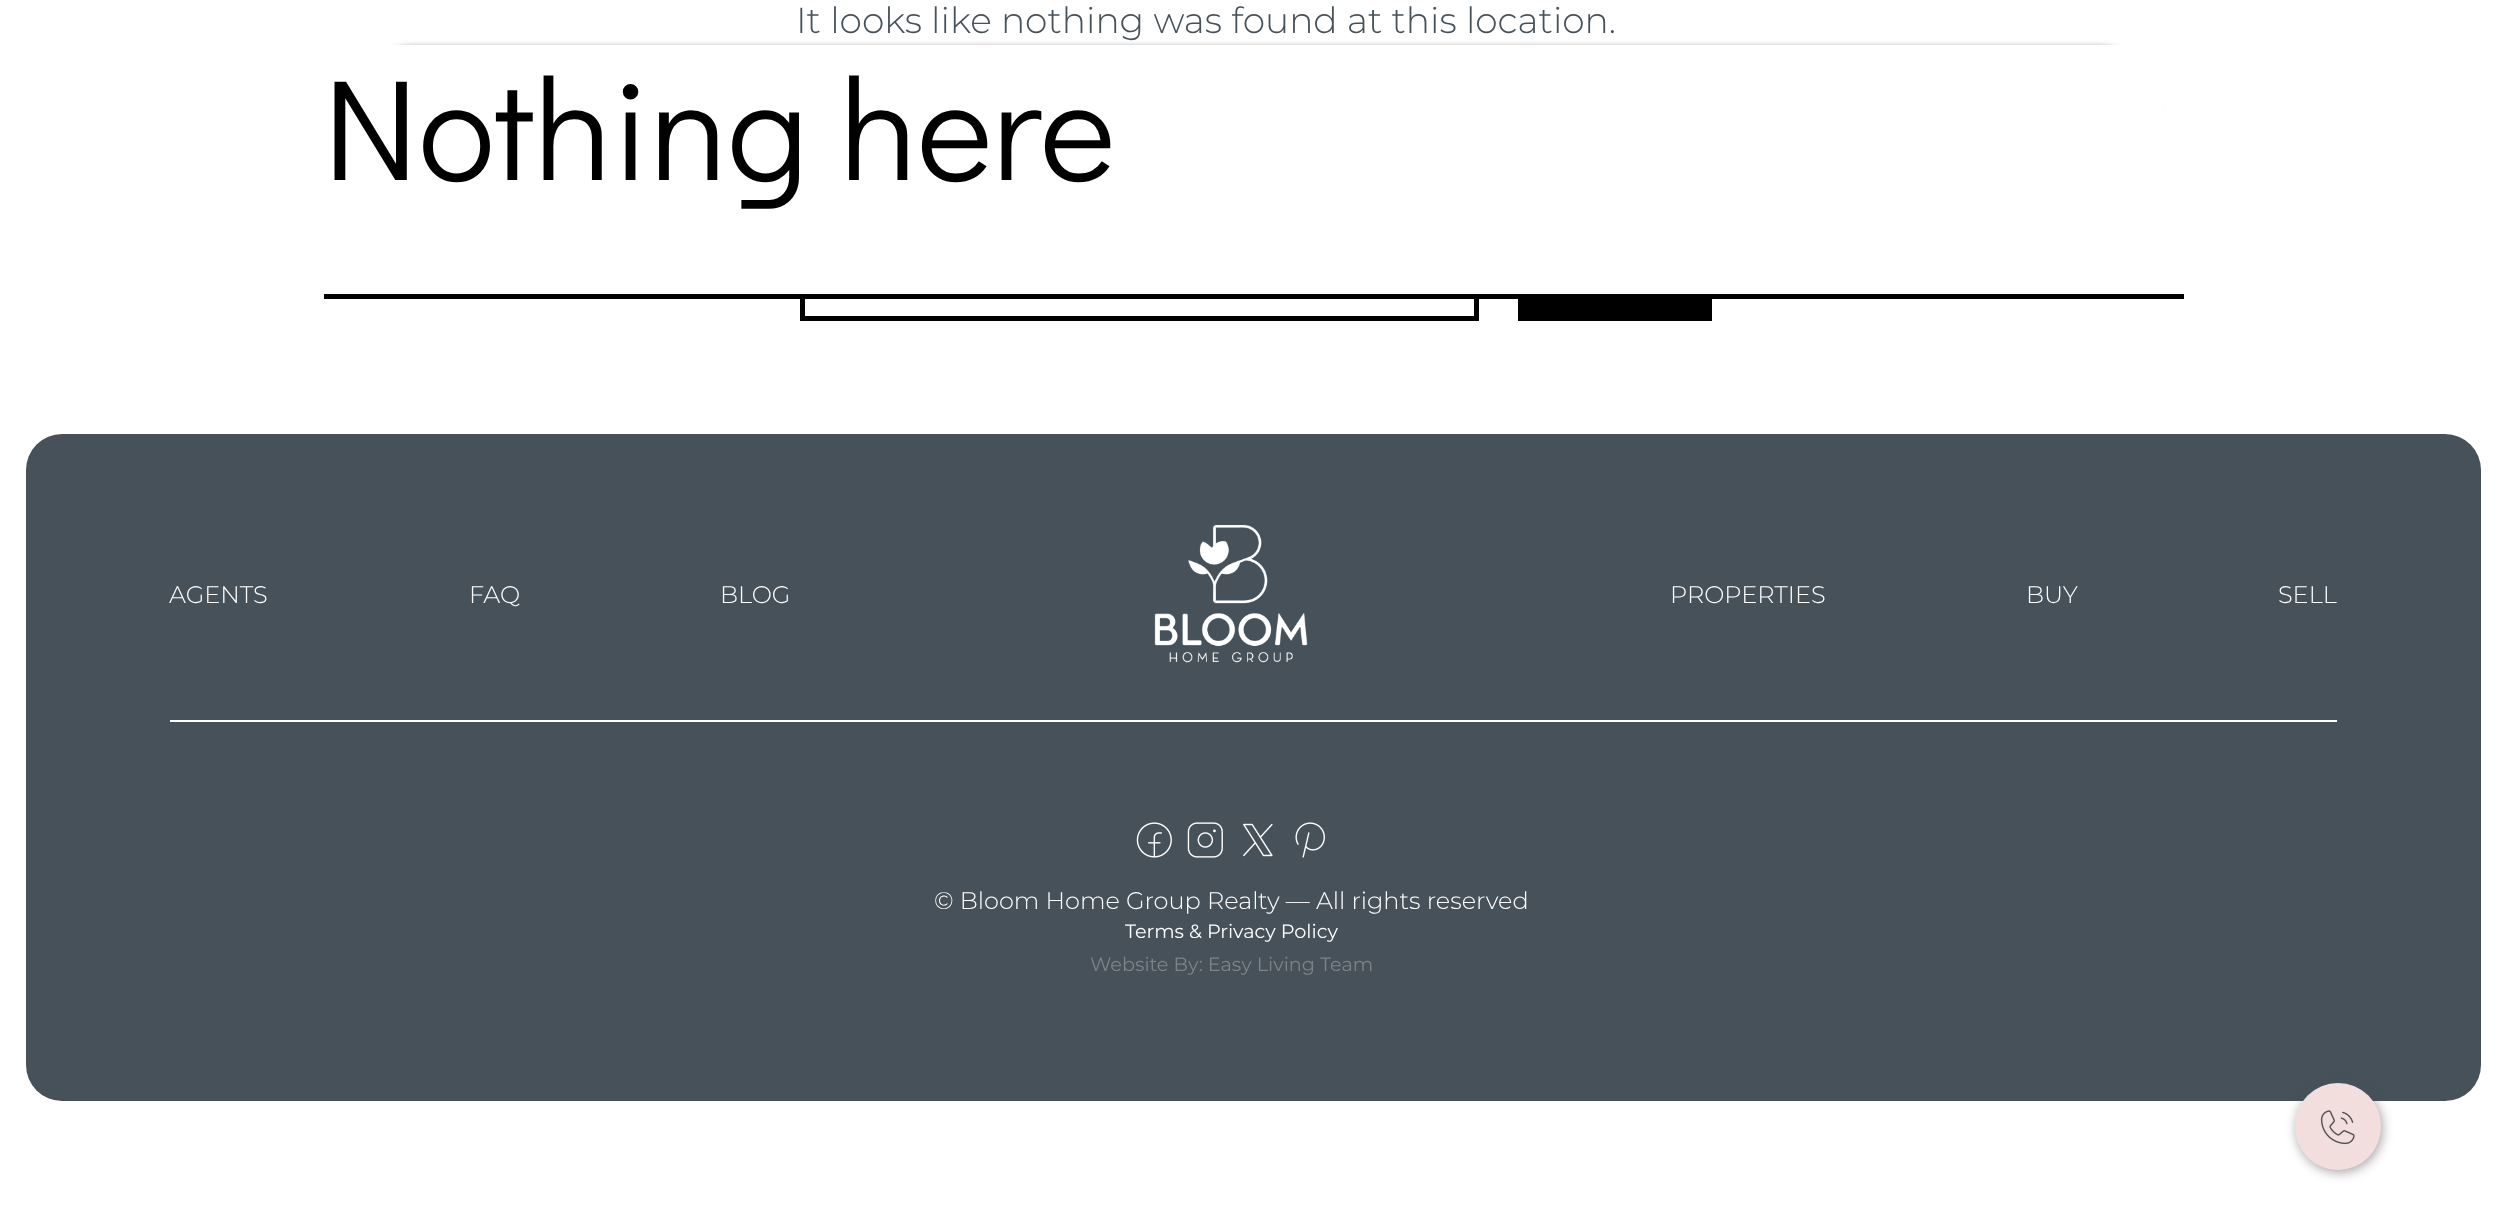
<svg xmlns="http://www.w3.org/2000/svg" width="2506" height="1217">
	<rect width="100%" height="100%" fill="#FFFFFF" />
	<text x="796" y="33" font-family="Montserrat" font-size="36" font-weight="300" fill="#46515A">It looks like nothing was found at this location.</text>
	<rect x="802.5" y="224.5" width="674" height="94" fill="none" stroke="#000000" stroke-width="5" />
	<rect x="1518" y="299" width="194" height="22" fill="#000000" />
	<rect x="356" y="47" width="1800" height="114" rx="57" fill="#808080" filter="blur(3px)" />
	<rect x="350" y="45" width="1812" height="249" fill="#FFFFFF" />
	<rect x="324" y="294" width="1860" height="5" fill="#000000" />
	<text x="323" y="180" font-family="Didact Gothic" font-size="144" fill="#000000">Nothing here</text>
	<rect x="26" y="434" width="2455" height="667" rx="36" fill="#46515A" />
	<rect x="2297" y="1085" width="85" height="87" rx="42.5" fill="#515151" fill-opacity="0.56" filter="blur(6px)" />
	<rect x="2295" y="1083" width="86" height="87" rx="43" fill="#F3DEDE" />
	<image x="2320" y="1110" width="35" height="35" href="assets/img1.png" />
	<g font-family="Montserrat" font-size="24" font-weight="300" fill="#FFFFFF">
		<text x="169" y="603">AGENTS</text>
		<text x="469" y="603">FAQ</text>
		<text x="720" y="603">BLOG</text>
	</g>
	<image x="1154" y="525" width="154" height="138" href="assets/img2.png" />
	<g font-family="Montserrat" font-size="24" font-weight="300" fill="#FFFFFF">
		<text x="1670" y="603">PROPERTIES</text>
		<text x="2026" y="603">BUY</text>
		<text x="2278" y="603">SELL</text>
	</g>
	<rect x="170" y="720" width="2167" height="2" fill="#FFFFFF" />
	<image x="1136" y="822" width="36" height="36" href="assets/img3.png" />
	<image x="1187" y="822" width="36" height="36" href="assets/img4.png" />
	<image x="1243" y="823" width="30" height="34" href="assets/img5.png" />
	<image x="1295" y="822" width="30" height="36" href="assets/img6.png" />
	<text x="934" y="909" font-family="Montserrat" font-size="24" font-weight="300" fill="#FFFFFF">© Bloom Home Group Realty — All rights reserved</text>
	<text x="1125" y="938" font-family="Montserrat" font-size="19.25" fill="#FFFFFF">Terms &amp; Privacy Policy</text>
	<text x="1090" y="971" font-family="Montserrat" font-size="19.25" fill="#7D8388">Website By: Easy Living Team</text>
</svg>
